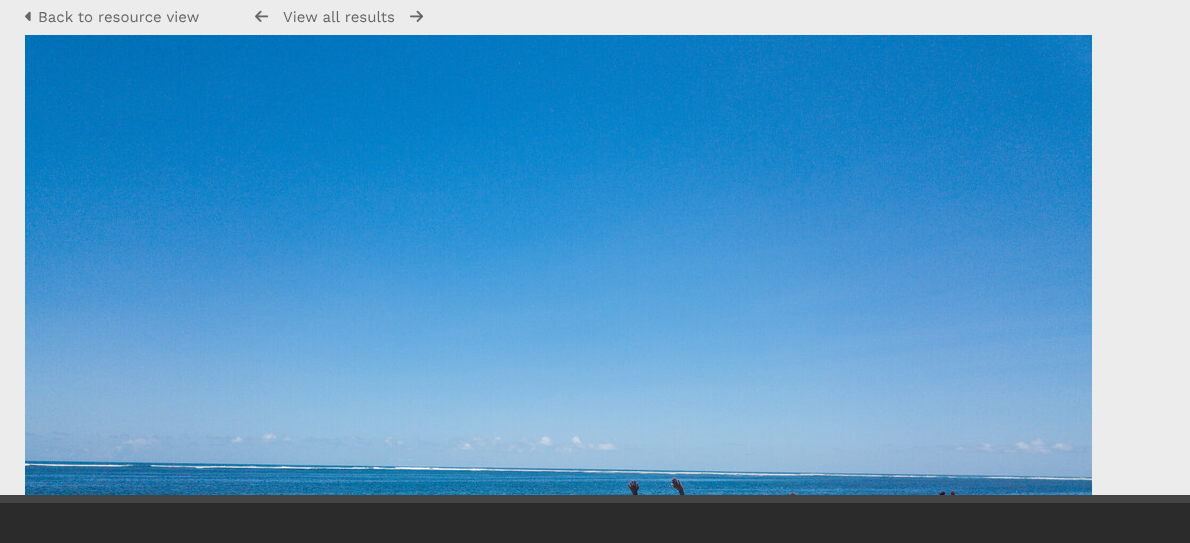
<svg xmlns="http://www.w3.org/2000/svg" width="1190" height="543">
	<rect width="100%" height="100%" fill="#ECECEC" />
	<image x="25" y="11" width="6" height="10" href="assets/img1.png" />
	<text x="38" y="22" font-family="Work Sans" font-size="15" fill="#666666">Back to resource view</text>
	<image x="255" y="10" width="14" height="12" href="assets/img2.png" />
	<text x="283" y="22" font-family="Work Sans" font-size="15" fill="#666666">View all results</text>
	<image x="410" y="10" width="14" height="12" href="assets/img3.png" />
	<image x="25" y="35" width="1067" height="460" href="assets/img4.png" />
	<rect x="0" y="495" width="1190" height="8" fill="#444444" />
	<rect x="0" y="503" width="1190" height="40" fill="#2B2B2B" />
</svg>
